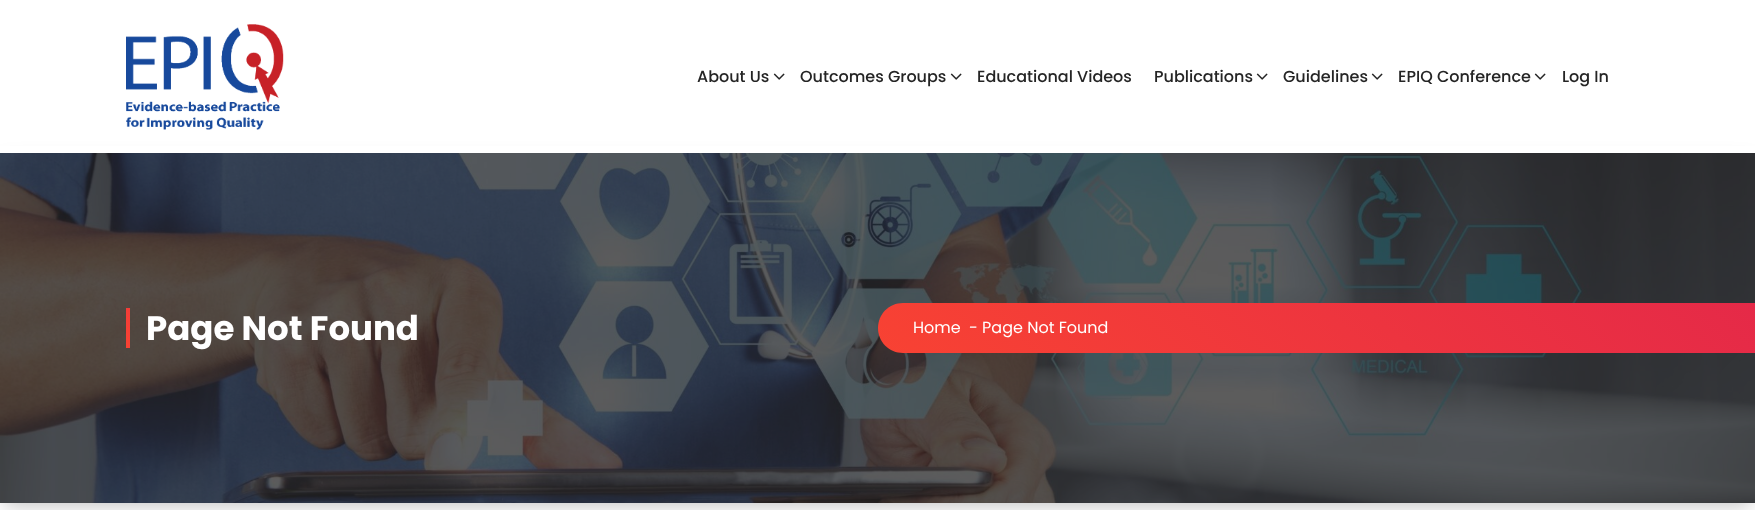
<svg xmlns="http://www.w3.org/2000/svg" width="1755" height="510">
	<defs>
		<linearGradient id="g1" gradientUnits="userSpaceOnUse" x1="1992" y1="-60" x2="1268" y2="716"><stop offset="0" stop-color="#D81956" /><stop offset="1" stop-color="#F84233" /></linearGradient>
	</defs>
	<rect width="100%" height="100%" fill="#FFFFFF" />
	<rect x="4" y="163" width="1747" height="342" fill="#000000" fill-opacity="0.25" filter="blur(10px)" />
	<rect x="0" y="146" width="1755" height="7" fill="#FFFFFF" />
	<image x="126" y="24" width="158" height="106" href="assets/img1.png" />
	<text x="697" y="82" font-family="Poppins" font-size="16" font-weight="500" fill="#252525">About Us</text>
	<image x="773" y="73" width="12" height="7" href="assets/img2.png" />
	<text x="800" y="82" font-family="Poppins" font-size="16" font-weight="500" fill="#252525">Outcomes Groups</text>
	<image x="950" y="73" width="12" height="7" href="assets/img2.png" />
	<g font-family="Poppins" font-size="16" font-weight="500" fill="#252525">
		<text x="977" y="82">Educational Videos</text>
		<text x="1154" y="82">Publications</text>
	</g>
	<image x="1256" y="73" width="12" height="7" href="assets/img2.png" />
	<text x="1283" y="82" font-family="Poppins" font-size="16" font-weight="500" fill="#252525">Guidelines</text>
	<image x="1371" y="73" width="12" height="7" href="assets/img2.png" />
	<text x="1398" y="82" font-family="Poppins" font-size="16" font-weight="500" fill="#252525">EPIQ Conference</text>
	<image x="1534" y="73" width="12" height="7" href="assets/img2.png" />
	<text x="1562" y="82" font-family="Poppins" font-size="16" font-weight="500" fill="#252525">Log In</text>
	<image x="0" y="153" width="1755" height="350" href="assets/img3.png" />
	<image x="126" y="308" width="4" height="40" href="assets/img4.png" />
	<text x="146" y="340" font-family="Poppins" font-size="34" font-weight="700" fill="#FFFFFF">Page Not Found</text>
	<path d="M903 303H1755V353H903C889 353 878 342 878 328C878 314 889 303 903 303Z" fill="url(#g1)" />
	<g font-family="Poppins" font-size="16" fill="#FFFFFF">
		<text x="913" y="333">Home</text>
		<text x="969" y="333">- Page Not Found</text>
	</g>
</svg>
